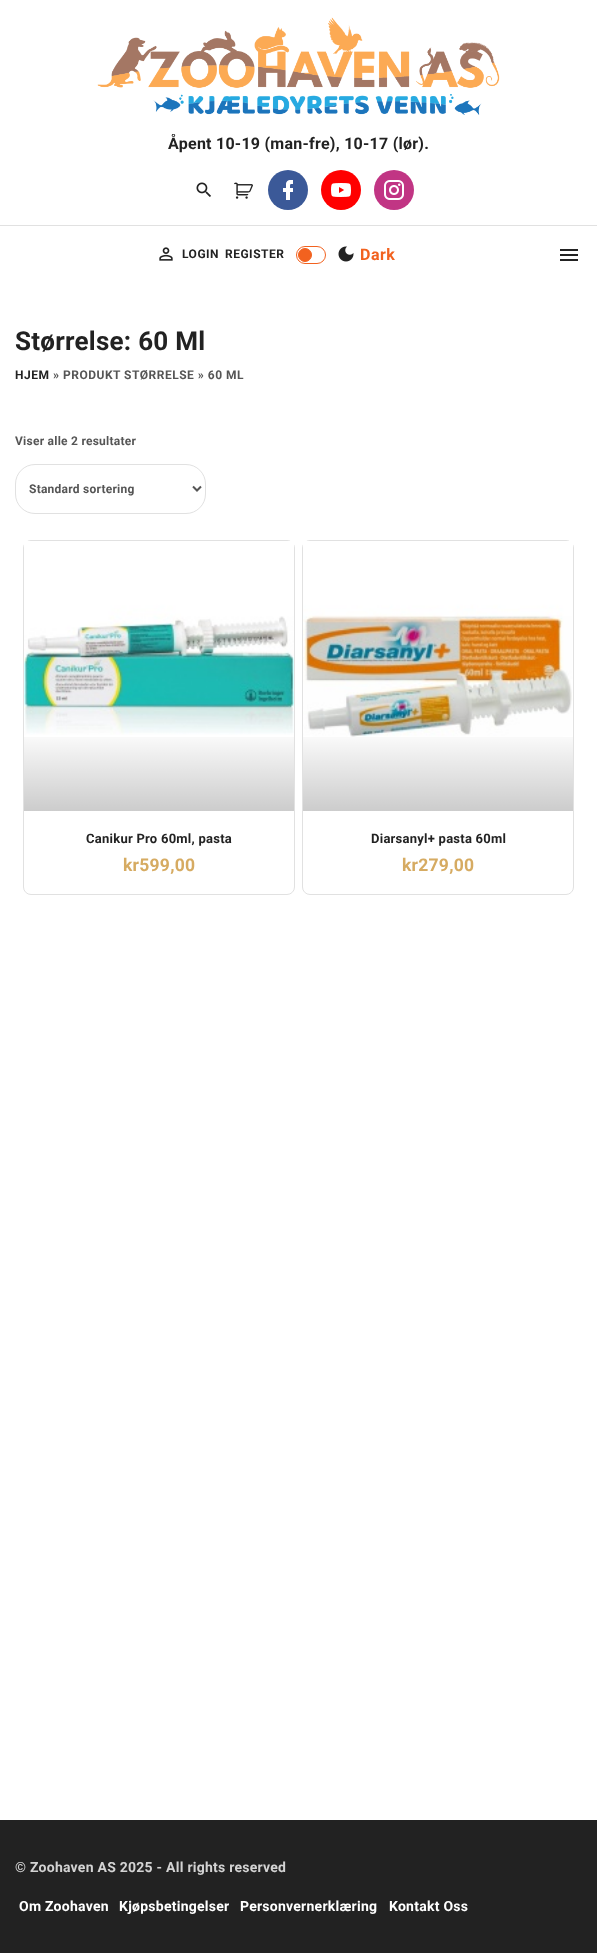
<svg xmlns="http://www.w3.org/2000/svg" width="597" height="1953">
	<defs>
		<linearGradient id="g1" gradientUnits="userSpaceOnUse" x1="159" y1="811" x2="159" y2="728"><stop offset="0" stop-color="#000000" stop-opacity="0.2" /><stop offset="1" stop-color="#000000" stop-opacity="0" /></linearGradient>
		<linearGradient id="g2" gradientUnits="userSpaceOnUse" x1="438" y1="811" x2="438" y2="728"><stop offset="0" stop-color="#000000" stop-opacity="0.2" /><stop offset="1" stop-color="#000000" stop-opacity="0" /></linearGradient>
	</defs>
	<rect width="100%" height="100%" fill="#FFFFFF" />
	<image x="97" y="17" width="403" height="98" href="assets/img1.png" />
	<text x="168" y="149" font-family="Roboto" font-size="16" font-weight="700" letter-spacing="0.25" fill="#222222">Åpent 10-19 (man-fre), 10-17 (lør).</text>
	<image x="196" y="182" width="15" height="15" href="assets/img2.png" />
	<image x="234" y="182" width="19" height="17" href="assets/img3.png" />
	<circle cx="288" cy="190" r="20" fill="#3B5998" />
	<image x="283" y="180" width="10" height="20" href="assets/img4.png" />
	<circle cx="341" cy="190" r="20" fill="#FF0000" />
	<image x="331" y="183" width="20" height="14" href="assets/img5.png" />
	<circle cx="394" cy="190" r="20" fill="#C13584" />
	<image x="384" y="180" width="20" height="20" href="assets/img6.png" />
	<rect x="0" y="225" width="597" height="1" fill="#E1E1E1" />
	<image x="159" y="247" width="14" height="14" href="assets/img7.png" />
	<g font-family="Roboto" font-size="12" font-weight="700" letter-spacing="0.5" fill="#222222">
		<text x="182" y="258">LOGIN</text>
		<text x="225" y="258">REGISTER</text>
	</g>
	<rect x="296.5" y="246.5" width="29" height="17" rx="8.5" fill="none" stroke="#F2621F" />
	<image x="338" y="246" width="16" height="16" href="assets/img8.png" />
	<circle cx="305" cy="255" r="6.5" fill="#F2621F" stroke="#F2621F" />
	<text x="360" y="260" font-family="Roboto" font-size="16" font-weight="700" letter-spacing="0.5" fill="#F2621F">Dark</text>
	<rect x="560" y="254" width="18" height="2" fill="#222222" />
	<rect x="560" y="249" width="18" height="2" fill="#222222" />
	<rect x="560" y="259" width="18" height="2" fill="#222222" />
	<text x="15" y="350" font-family="Roboto" font-size="26" font-weight="700" letter-spacing="0.25" fill="#222222">Størrelse: 60 Ml</text>
	<text x="15" y="379" font-family="Roboto" font-size="12" font-weight="700" letter-spacing="0.5" fill="#222222">HJEM</text>
	<text x="53" y="379" font-family="Roboto" font-size="12" font-weight="700" letter-spacing="0.5" fill="#555555">» PRODUKT STØRRELSE » 60 ML</text>
	<text x="15" y="445" font-family="Roboto" font-size="12" font-weight="700" letter-spacing="0.25" fill="#555555">Viser alle 2 resultater</text>
	<rect x="15.5" y="464.5" width="190" height="49" rx="19.5" fill="none" stroke="#E1E1E1" />
	<path d="M193 486.5L197 490.5L201 486.5" fill="none" stroke="#555555" stroke-width="2" />
	<text x="29" y="493" font-family="Roboto" font-size="12" font-weight="700" letter-spacing="0.25" fill="#555555">Standard sortering</text>
	<rect x="23.5" y="540.5" width="271" height="354" rx="7.5" fill="none" stroke="#E1E1E1" />
	<image x="24" y="541" width="270" height="194" href="assets/img9.png" />
	<rect x="24" y="737" width="270" height="74" fill="url(#g1)" />
	<text x="86" y="843" font-family="Roboto" font-size="13" font-weight="700" letter-spacing="0.25" fill="#222222">Canikur Pro 60ml, pasta</text>
	<text x="123" y="871" font-family="Roboto" font-size="17.5" font-weight="700" letter-spacing="0.25" fill="#D6AB62">kr599,00</text>
	<rect x="302.5" y="540.5" width="271" height="354" rx="7.5" fill="none" stroke="#E1E1E1" />
	<image x="303" y="541" width="270" height="196" href="assets/img10.png" />
	<rect x="303" y="737" width="270" height="74" fill="url(#g2)" />
	<text x="371" y="843" font-family="Roboto" font-size="13" font-weight="700" letter-spacing="0.25" fill="#222222">Diarsanyl+ pasta 60ml</text>
	<text x="402" y="871" font-family="Roboto" font-size="17.5" font-weight="700" letter-spacing="0.25" fill="#D6AB62">kr279,00</text>
	<rect x="0" y="1820" width="597" height="133" fill="#222222" />
	<text x="15" y="1872" font-family="Roboto" font-size="14" font-weight="700" letter-spacing="0.25" fill="#D3D3D3">© Zoohaven AS 2025 - All rights reserved</text>
	<g font-family="Roboto" font-size="14" font-weight="700" letter-spacing="0.25" fill="#FFFFFF">
		<text x="19" y="1911">Om Zoohaven</text>
		<text x="119" y="1911">Kjøpsbetingelser</text>
		<text x="240" y="1911">Personvernerklæring</text>
		<text x="389" y="1911">Kontakt Oss</text>
	</g>
</svg>
